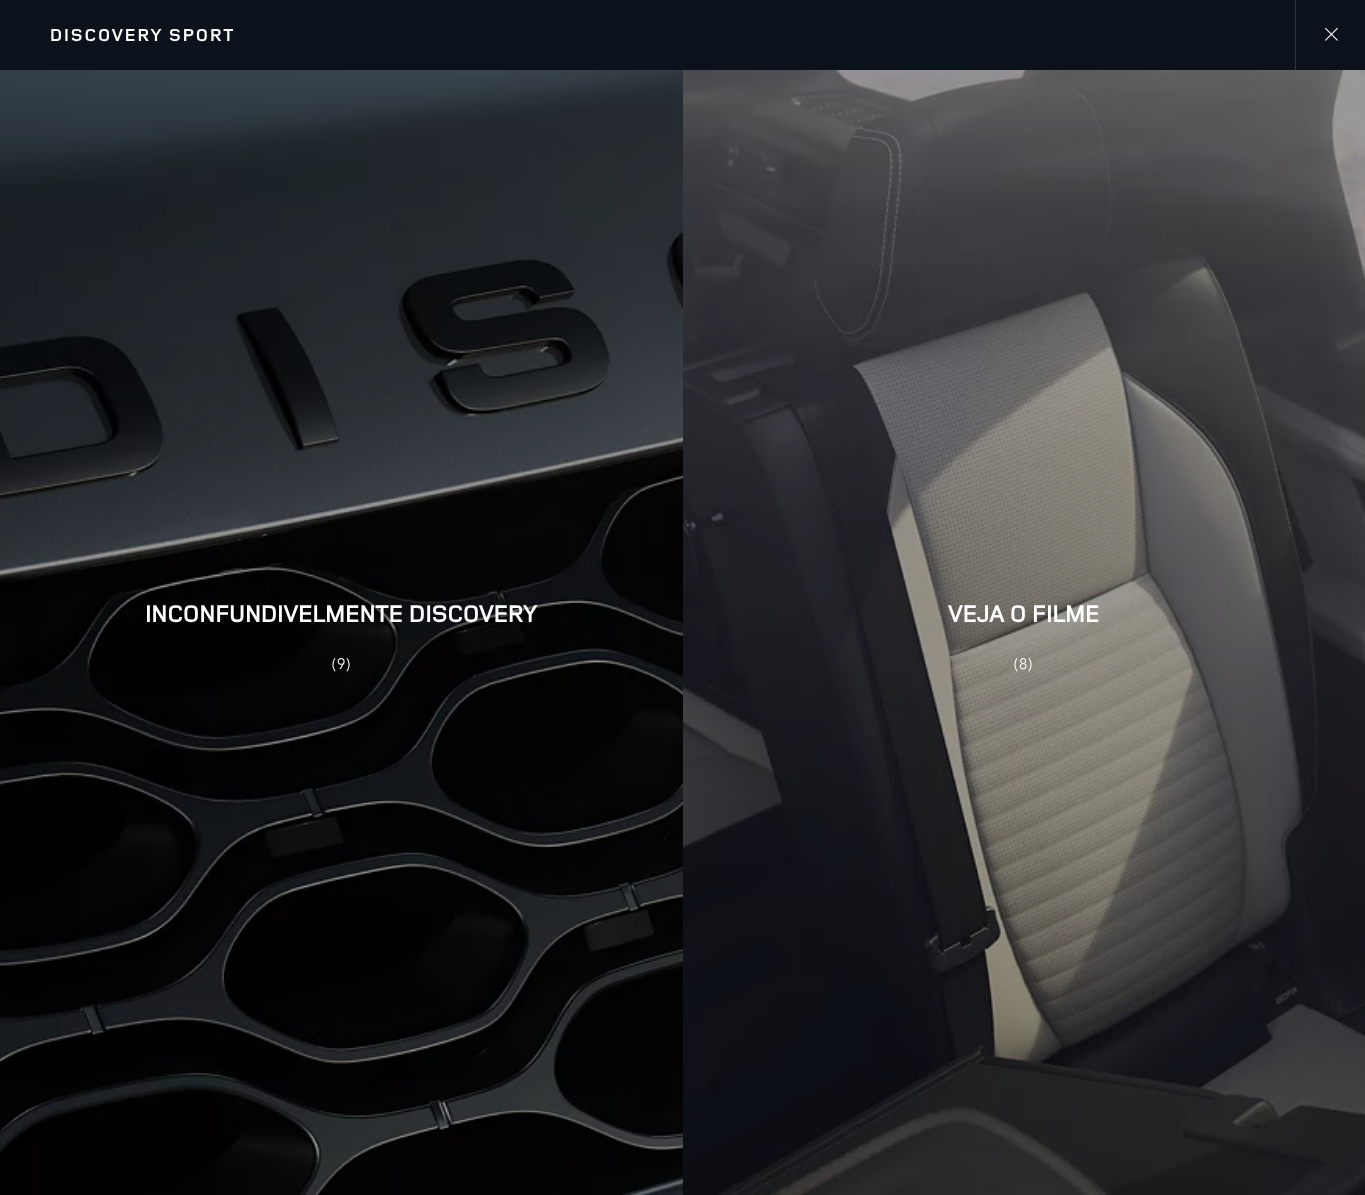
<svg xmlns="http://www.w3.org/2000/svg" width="1365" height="1195">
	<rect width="100%" height="100%" fill="#FFFFFF" />
	<rect x="0" y="0" width="1365" height="70" fill="#0C121C" />
	<text x="50" y="41" font-family="'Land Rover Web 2'" font-size="18" font-weight="700" letter-spacing="1.9" fill="#FFFFFF">DISCOVERY SPORT</text>
	<rect x="1295" y="0" width="1" height="70" fill="#30363E" />
	<image x="1325" y="27" width="13" height="14" href="assets/img1.png" />
	<image x="0" y="70" width="683" height="1125" href="assets/img2.png" />
	<text x="145" y="622" font-family="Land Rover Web" font-size="24" font-weight="700" letter-spacing="0.2" fill="#FFFFFF">INCONFUNDIVELMENTE DISCOVERY</text>
	<text x="332" y="669" font-family="'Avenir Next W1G'" font-size="15" letter-spacing="0.2" fill="#FFFFFF">(9)</text>
	<image x="683" y="70" width="682" height="1125" href="assets/img3.png" />
	<text x="948" y="622" font-family="Land Rover Web" font-size="24" font-weight="700" letter-spacing="0.2" fill="#FFFFFF">VEJA O FILME</text>
	<text x="1014" y="669" font-family="'Avenir Next W1G'" font-size="15" letter-spacing="0.2" fill="#FFFFFF">(8)</text>
</svg>
